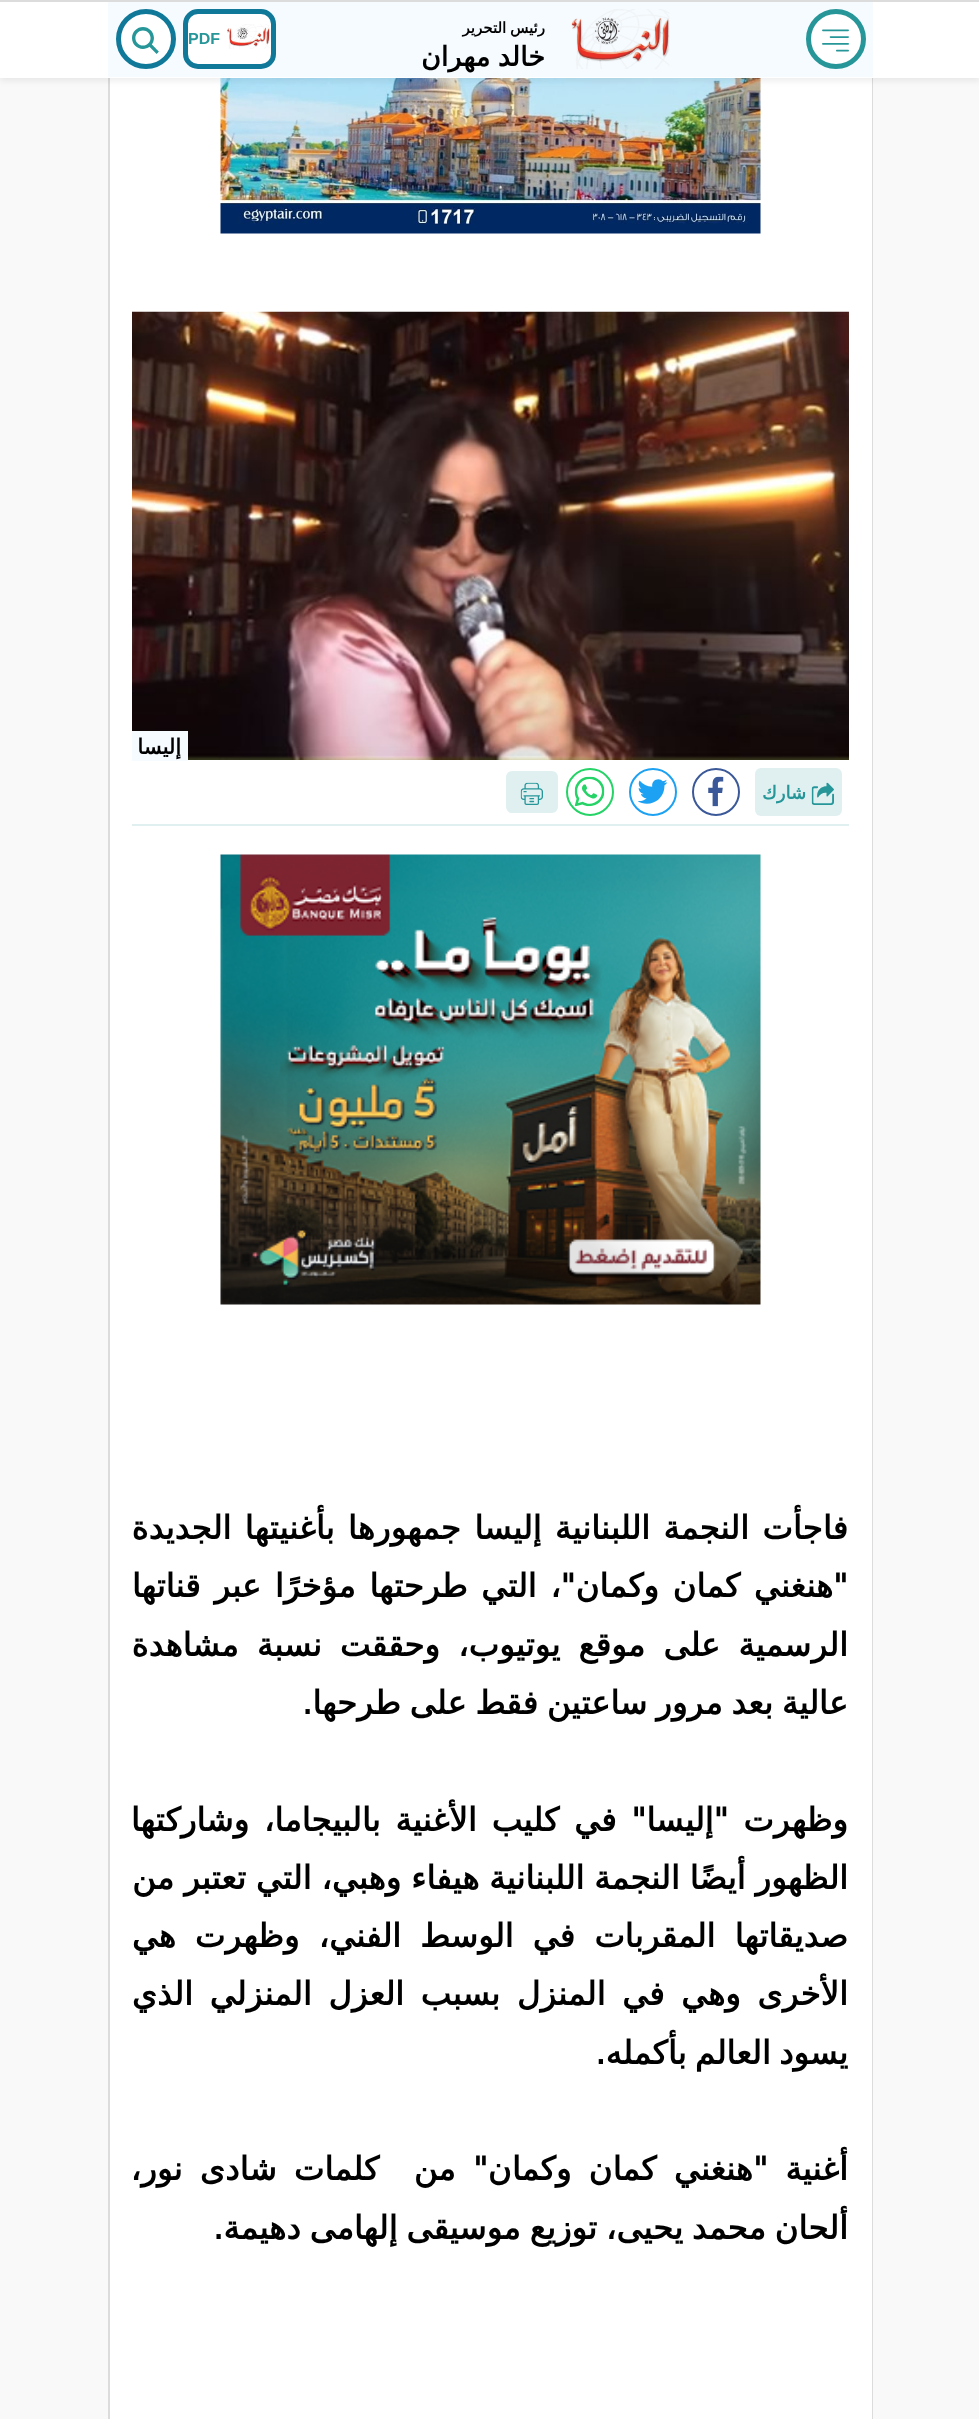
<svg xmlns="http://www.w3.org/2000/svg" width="979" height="2419">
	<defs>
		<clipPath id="clip1"><rect x="132" y="1383" width="717" height="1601" /></clipPath>
	</defs>
	<rect width="100%" height="100%" fill="#F9F9F9" />
	<rect x="109" y="-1" width="763" height="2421" fill="none" stroke="#DCDCDC" stroke-width="2" />
	<rect x="110" y="78" width="762" height="2341" fill="#FFFFFF" />
	<image x="220" y="78" width="541" height="156" href="assets/img5.png" />
	<rect x="0" y="3" width="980" height="78" fill="#000000" fill-opacity="0.07" filter="blur(3px)" />
	<rect x="0" y="2" width="979" height="76" fill="#FFFFFF" />
	<rect x="0" y="0" width="979" height="2" fill="#DCDCDC" />
	<rect x="108" y="2" width="765" height="75" fill="#F5FBFF" />
	<circle cx="836" cy="39" r="27.5" fill="#FFFFFF" stroke="#269699" stroke-width="5" />
	<image x="822" y="29" width="27" height="23" href="assets/img1.png" />
	<image x="571" y="9" width="99" height="60" href="assets/img2.png" />
	<text x="545" y="33" word-spacing="-1" font-family="DejaVu Sans" font-size="15" font-weight="700" direction="rtl" fill="#000000">رئيس التحرير</text>
	<text x="545" y="66" word-spacing="-1" font-family="DejaVu Sans" font-size="27" font-weight="700" direction="rtl" fill="#000000">خالد مهران</text>
	<rect x="185.5" y="11.5" width="88" height="55" rx="12.5" fill="#FFFFFF" stroke="#107999" stroke-width="5" />
	<image x="227" y="24" width="43" height="25" href="assets/img3.png" />
	<text x="188" y="44" font-family="Liberation Sans" font-size="16" font-weight="700" fill="#269699">PDF</text>
	<circle cx="146" cy="39" r="27.5" fill="#FFFFFF" stroke="#107999" stroke-width="5" />
	<image x="132" y="27" width="27" height="27" href="assets/img4.png" />
	<image x="132" y="311" width="717" height="449" href="assets/img6.png" />
	<rect x="132" y="731" width="56" height="30" fill="#F5FBFF" />
	<text x="181" y="754" font-family="DejaVu Sans" font-size="21" font-weight="700" direction="rtl" fill="#000000">إليسا</text>
	<rect x="132" y="824" width="717" height="2" fill="#E0F0F1" />
	<rect x="755" y="768" width="87" height="48" rx="6" fill="#E0F0F1" />
	<image x="811" y="782" width="23" height="23" href="assets/img7.png" />
	<text x="806" y="799" font-family="DejaVu Sans" font-size="18" font-weight="700" direction="rtl" fill="#269699">شارك</text>
	<circle cx="716" cy="792" r="23" fill="none" stroke="#3B5998" stroke-width="2" />
	<image x="708" y="776" width="16" height="31" href="assets/img8.png" />
	<circle cx="653" cy="792" r="23" fill="none" stroke="#1DA1F2" stroke-width="2" />
	<image x="638" y="779" width="30" height="25" href="assets/img9.png" />
	<circle cx="590" cy="792" r="23" fill="none" stroke="#25D366" stroke-width="2" />
	<image x="574" y="776" width="31" height="31" href="assets/img10.png" />
	<rect x="506" y="771" width="52" height="42" rx="6" fill="#E0F0F1" />
	<image x="520" y="782" width="23" height="23" href="assets/img11.png" />
	<image x="220" y="854" width="541" height="451" href="assets/img12.png" />
	<g font-family="DejaVu Sans" font-size="32.4" font-weight="700" direction="rtl" fill="#000000">
		<text x="848" y="1539" word-spacing="3">فاجأت النجمة اللبنانية إليسا جمهورها بأغنيتها الجديدة</text>
		<text x="848" y="1597" word-spacing="3.25">"هنغني كمان وكمان"، التي طرحتها مؤخرًا عبر قناتها</text>
		<text x="848" y="1656" word-spacing="7.75">الرسمية على موقع يوتيوب، وحققت نسبة مشاهدة</text>
	</g>
	<g clip-path="url(#clip1)">
		<text x="848" y="1714" word-spacing="-1.5" font-family="DejaVu Sans" font-size="32.4" font-weight="700" direction="rtl" fill="#000000">عالية بعد مرور ساعتين فقط على طرحها.</text>
	</g>
	<g font-family="DejaVu Sans" font-size="32.4" font-weight="700" direction="rtl" fill="#000000">
		<text x="848" y="1831" word-spacing="4.5">وظهرت "إليسا" في كليب الأغنية بالبيجاما، وشاركتها</text>
		<text x="848" y="1889" word-spacing="-0.5">الظهور أيضًا النجمة اللبنانية هيفاء وهبي، التي تعتبر من</text>
		<text x="848" y="1947" word-spacing="8.75">صديقاتها المقربات في الوسط الفني، وظهرت هي</text>
		<text x="848" y="2005" word-spacing="6.25">الأخرى وهي في المنزل بسبب العزل المنزلي الذي</text>
	</g>
	<g clip-path="url(#clip1)">
		<text x="848" y="2064" word-spacing="-2" font-family="DejaVu Sans" font-size="32.4" font-weight="700" direction="rtl" fill="#000000">يسود العالم بأكمله.</text>
	</g>
	<text x="848" y="2180" word-spacing="7" font-family="DejaVu Sans" font-size="32.4" font-weight="700" direction="rtl" fill="#000000" xml:space="preserve">أغنية "هنغني كمان وكمان" من  كلمات شادى نور،</text>
	<g clip-path="url(#clip1)">
		<text x="848" y="2239" word-spacing="-1.5" font-family="DejaVu Sans" font-size="32.4" font-weight="700" direction="rtl" fill="#000000">ألحان محمد يحيى، توزيع موسيقى إلهامى دهيمة.</text>
	</g>
</svg>
